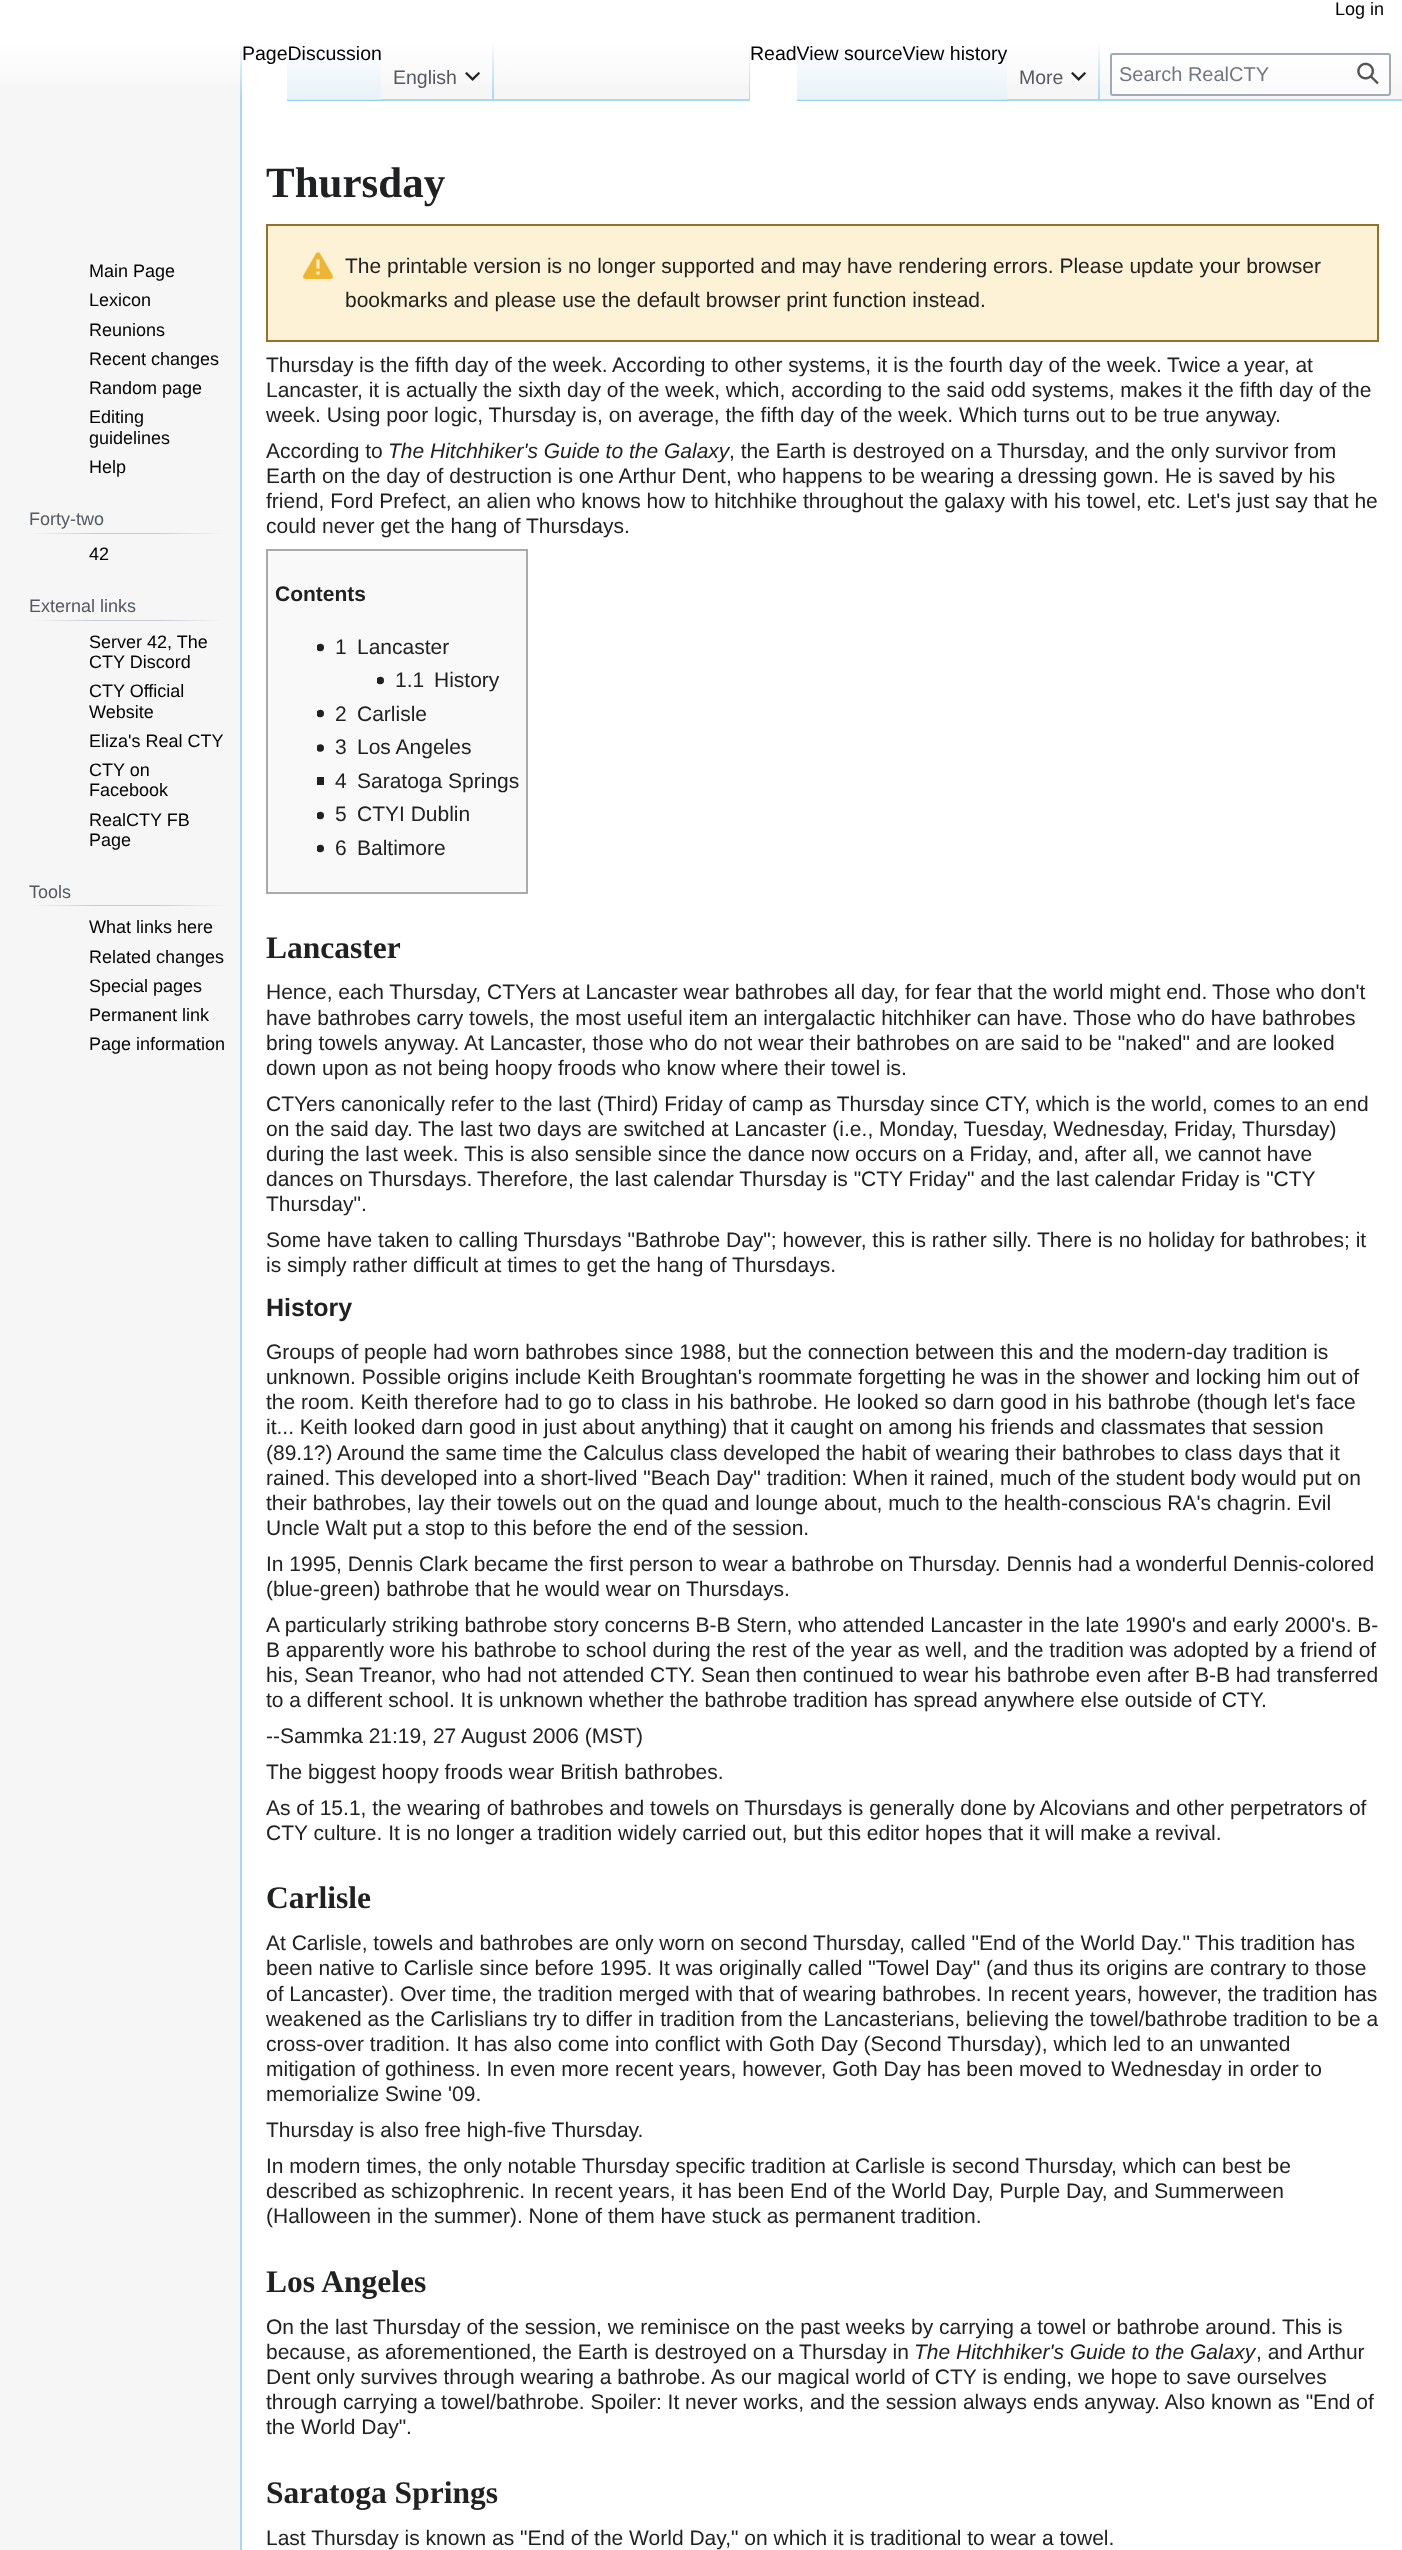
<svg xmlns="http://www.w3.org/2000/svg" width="1402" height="2550">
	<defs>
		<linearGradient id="g1" gradientUnits="userSpaceOnUse" x1="701" y1="-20" x2="701" y2="101"><stop offset="0.5" stop-color="#FFFFFF" /><stop offset="1" stop-color="#F6F6F6" /></linearGradient>
		<linearGradient id="g2" gradientUnits="userSpaceOnUse" x1="241" y1="41" x2="241" y2="101"><stop offset="0" stop-color="#A7D7F9" stop-opacity="0" /><stop offset="1" stop-color="#A7D7F9" /></linearGradient>
		<linearGradient id="g3" gradientUnits="userSpaceOnUse" x1="334" y1="101" x2="334" y2="41"><stop offset="0" stop-color="#77C1F6" /><stop offset="0.03" stop-color="#E8F2F8" /><stop offset="1" stop-color="#FFFFFF" /></linearGradient>
		<linearGradient id="g4" gradientUnits="userSpaceOnUse" x1="493" y1="41" x2="493" y2="101"><stop offset="0" stop-color="#A7D7F9" stop-opacity="0" /><stop offset="1" stop-color="#A7D7F9" /></linearGradient>
		<linearGradient id="g5" gradientUnits="userSpaceOnUse" x1="749" y1="41" x2="749" y2="101"><stop offset="0" stop-color="#A7D7F9" stop-opacity="0" /><stop offset="1" stop-color="#A7D7F9" /></linearGradient>
		<linearGradient id="g6" gradientUnits="userSpaceOnUse" x1="850" y1="101" x2="850" y2="41"><stop offset="0" stop-color="#77C1F6" /><stop offset="0.03" stop-color="#E8F2F8" /><stop offset="1" stop-color="#FFFFFF" /></linearGradient>
		<linearGradient id="g7" gradientUnits="userSpaceOnUse" x1="955" y1="101" x2="955" y2="41"><stop offset="0" stop-color="#77C1F6" /><stop offset="0.03" stop-color="#E8F2F8" /><stop offset="1" stop-color="#FFFFFF" /></linearGradient>
		<linearGradient id="g8" gradientUnits="userSpaceOnUse" x1="1099" y1="41" x2="1099" y2="101"><stop offset="0" stop-color="#A7D7F9" stop-opacity="0" /><stop offset="1" stop-color="#A7D7F9" /></linearGradient>
		<linearGradient id="g9" gradientUnits="userSpaceOnUse" x1="29" y1="533" x2="225" y2="533"><stop offset="0" stop-color="#F6F6F6" /><stop offset="0.33" stop-color="#C8CCD1" /><stop offset="0.66" stop-color="#C8CCD1" /><stop offset="1" stop-color="#F6F6F6" /></linearGradient>
		<linearGradient id="g10" gradientUnits="userSpaceOnUse" x1="29" y1="620" x2="225" y2="620"><stop offset="0" stop-color="#F6F6F6" /><stop offset="0.33" stop-color="#C8CCD1" /><stop offset="0.66" stop-color="#C8CCD1" /><stop offset="1" stop-color="#F6F6F6" /></linearGradient>
		<linearGradient id="g11" gradientUnits="userSpaceOnUse" x1="29" y1="905" x2="225" y2="905"><stop offset="0" stop-color="#F6F6F6" /><stop offset="0.33" stop-color="#C8CCD1" /><stop offset="0.66" stop-color="#C8CCD1" /><stop offset="1" stop-color="#F6F6F6" /></linearGradient>
	</defs>
	<rect width="100%" height="100%" fill="#F6F6F6" />
	<rect x="0" y="0" width="1402" height="84" fill="url(#g1)" />
	<text x="1335" y="15" font-family="Liberation Sans" font-size="18" fill="#000000">Log in</text>
	<rect x="240" y="99" width="2" height="2451" fill="#A7D7F9" />
	<rect x="240" y="41" width="2" height="60" fill="url(#g2)" />
	<rect x="242" y="57" width="45" height="44" fill="#FFFFFF" />
	<rect x="287" y="50" width="94" height="51" fill="url(#g3)" />
	<text x="242" y="60" font-family="Liberation Sans" font-size="19.5" fill="#000000">PageDiscussion</text>
	<rect x="381" y="99" width="1021" height="2" fill="#A7D7F9" />
	<rect x="492" y="41" width="2" height="60" fill="url(#g4)" />
	<text x="393" y="84" font-family="Liberation Sans" font-size="19.5" fill="#54595D">English</text>
	<image x="465" y="72" width="15" height="9" href="assets/img1.png" />
	<rect x="749" y="41" width="1" height="60" fill="url(#g5)" />
	<rect x="750" y="57" width="47" height="44" fill="#FFFFFF" />
	<rect x="797" y="50" width="106" height="51" fill="url(#g6)" />
	<rect x="903" y="50" width="104" height="51" fill="url(#g7)" />
	<text x="750" y="60" font-family="Liberation Sans" font-size="19.5" fill="#000000">ReadView sourceView history</text>
	<rect x="1098" y="41" width="2" height="60" fill="url(#g8)" />
	<text x="1019" y="84" font-family="Liberation Sans" font-size="19.5" fill="#54595D">More</text>
	<image x="1071" y="72" width="15" height="9" href="assets/img1.png" />
	<rect x="1111" y="54" width="279" height="41" rx="2" fill="#FFFFFF" fill-opacity="0.5" stroke="#A2A9B1" stroke-width="2" />
	<text x="1119" y="81" font-family="Liberation Sans" font-size="20" fill="#72777D">Search RealCTY</text>
	<image x="1357" y="62" width="22" height="23" href="assets/img2.png" />
	<g font-family="Liberation Sans" font-size="18" fill="#000000">
		<text x="89" y="277">Main Page</text>
		<text x="89" y="306">Lexicon</text>
		<text x="89" y="336">Reunions</text>
		<text x="89" y="365">Recent changes</text>
		<text x="89" y="394">Random page</text>
		<text x="89" y="423">Editing</text>
		<text x="89" y="444">guidelines</text>
		<text x="89" y="473">Help</text>
	</g>
	<rect x="29" y="533" width="196" height="1" fill="url(#g9)" />
	<text x="29" y="525" font-family="Liberation Sans" font-size="18" fill="#54595D">Forty-two</text>
	<text x="89" y="560" font-family="Liberation Sans" font-size="18" fill="#000000">42</text>
	<rect x="29" y="620" width="196" height="1" fill="url(#g10)" />
	<text x="29" y="612" font-family="Liberation Sans" font-size="18" fill="#54595D">External links</text>
	<g font-family="Liberation Sans" font-size="18" fill="#000000">
		<text x="89" y="648">Server 42, The</text>
		<text x="89" y="668">CTY Discord</text>
		<text x="89" y="697">CTY Official</text>
		<text x="89" y="718">Website</text>
		<text x="89" y="747">Eliza's Real CTY</text>
		<text x="89" y="776">CTY on</text>
		<text x="89" y="796">Facebook</text>
		<text x="89" y="826">RealCTY FB</text>
		<text x="89" y="846">Page</text>
	</g>
	<rect x="29" y="905" width="196" height="1" fill="url(#g11)" />
	<text x="29" y="898" font-family="Liberation Sans" font-size="18" fill="#54595D">Tools</text>
	<g font-family="Liberation Sans" font-size="18" fill="#000000">
		<text x="89" y="933">What links here</text>
		<text x="89" y="963">Related changes</text>
		<text x="89" y="992">Special pages</text>
		<text x="89" y="1021">Permanent link</text>
		<text x="89" y="1050">Page information</text>
	</g>
	<rect x="242" y="101" width="1160" height="2449" fill="#FFFFFF" />
	<text x="266" y="197" font-family="Liberation Serif" font-size="43" font-weight="700" fill="#202122">Thursday</text>
	<rect x="267" y="225" width="1111" height="116" fill="#FDF2D5" stroke="#987027" stroke-width="2" />
	<image x="303" y="252" width="30" height="27" href="assets/img3.png" />
	<g font-family="Liberation Sans" font-size="21" fill="#202122">
		<text x="345" y="273">The printable version is no longer supported and may have rendering errors. Please update your browser</text>
		<text x="345" y="307">bookmarks and please use the default browser print function instead.</text>
		<text x="266" y="372">Thursday</text>
		<text x="359" y="372">is the fifth day of the week.</text>
		<text x="612" y="372">According to other systems, it is the fourth day of the week.</text>
		<text x="1167" y="372">Twice a year, at</text>
		<text x="266" y="397">Lancaster</text>
		<text x="357" y="397">, it is actually the sixth day of the week, which, according to the said odd systems, makes it the fifth day of the</text>
		<text x="266" y="422">week. Using poor logic, Thursday is, on average, the fifth day of the week. Which turns out to be true anyway.</text>
		<text x="266" y="458">According to</text>
	</g>
	<text x="388" y="458" font-family="Liberation Sans" font-size="21" font-style="italic" fill="#202122">The Hitchhiker's Guide to the Galaxy</text>
	<g font-family="Liberation Sans" font-size="21" fill="#202122">
		<text x="729" y="458">, the Earth is destroyed on a Thursday, and the only survivor from</text>
		<text x="266" y="483">Earth on the day of destruction is one Arthur Dent, who happens to be wearing a dressing gown. He is saved by his</text>
		<text x="266" y="508">friend, Ford Prefect, an alien who knows how to hitchhike throughout the galaxy with his towel, etc. Let's just say that he</text>
		<text x="266" y="533">could never get the hang of Thursdays.</text>
	</g>
	<rect x="267" y="550" width="260" height="343" fill="#F9F9F9" stroke="#AAAAAA" stroke-width="2" />
	<text x="275" y="601" font-family="Liberation Sans" font-size="21" font-weight="700" fill="#202122">Contents</text>
	<image x="317" y="643" width="7" height="9" href="assets/img4.png" />
	<g font-family="Liberation Sans" font-size="21" fill="#202122">
		<text x="335" y="654">1</text>
		<text x="357" y="654">Lancaster</text>
	</g>
	<image x="377" y="676" width="7" height="9" href="assets/img4.png" />
	<g font-family="Liberation Sans" font-size="21" fill="#202122">
		<text x="395" y="687">1.1</text>
		<text x="434" y="687">History</text>
	</g>
	<image x="317" y="709" width="7" height="9" href="assets/img4.png" />
	<g font-family="Liberation Sans" font-size="21" fill="#202122">
		<text x="335" y="721">2</text>
		<text x="357" y="721">Carlisle</text>
	</g>
	<image x="317" y="744" width="7" height="8" href="assets/img5.png" />
	<g font-family="Liberation Sans" font-size="21" fill="#202122">
		<text x="335" y="754">3</text>
		<text x="357" y="754">Los Angeles</text>
	</g>
	<rect x="317" y="777" width="7" height="8" fill="#202122" />
	<g font-family="Liberation Sans" font-size="21" fill="#202122">
		<text x="335" y="788">4</text>
		<text x="357" y="788">Saratoga Springs</text>
	</g>
	<image x="317" y="811" width="7" height="9" href="assets/img4.png" />
	<g font-family="Liberation Sans" font-size="21" fill="#202122">
		<text x="335" y="821">5</text>
		<text x="357" y="821">CTYI Dublin</text>
	</g>
	<image x="317" y="844" width="7" height="9" href="assets/img4.png" />
	<g font-family="Liberation Sans" font-size="21" fill="#202122">
		<text x="335" y="855">6</text>
		<text x="357" y="855">Baltimore</text>
	</g>
	<text x="266" y="958" font-family="Liberation Serif" font-size="31.5" font-weight="700" fill="#202122">Lancaster</text>
	<g font-family="Liberation Sans" font-size="21" fill="#202122">
		<text x="266" y="999">Hence, each Thursday, CTYers at Lancaster wear bathrobes all day, for fear that the world might end.</text>
		<text x="1212" y="999">Those who don't</text>
		<text x="266" y="1025">have bathrobes carry towels, the most useful item an intergalactic hitchhiker can have.</text>
		<text x="1073" y="1025">Those who do have bathrobes</text>
		<text x="266" y="1050">bring towels anyway.</text>
		<text x="464" y="1050">At Lancaster, those who do not wear their bathrobes on are said to be "naked" and are looked</text>
		<text x="266" y="1075">down upon as not being hoopy froods who know where their towel is.</text>
		<text x="266" y="1111">CTYers canonically refer to the last (Third) Friday of camp as Thursday since CTY, which is the world, comes to an end</text>
		<text x="266" y="1136">on the said day.</text>
		<text x="418" y="1136">The last two days are switched at Lancaster (i.e., Monday, Tuesday, Wednesday, Friday, Thursday)</text>
		<text x="266" y="1161">during the last week.</text>
		<text x="464" y="1161">This is also sensible since the dance now occurs on a Friday, and, after all, we cannot have</text>
		<text x="266" y="1186">dances on Thursdays.</text>
		<text x="477" y="1186">Therefore, the last calendar Thursday is "CTY Friday" and the last calendar Friday is "CTY</text>
		<text x="266" y="1211">Thursday".</text>
		<text x="266" y="1247">Some have taken to calling Thursdays "Bathrobe Day"; however, this is rather silly.</text>
		<text x="1037" y="1247">There is no holiday for bathrobes; it</text>
		<text x="266" y="1272">is simply rather difficult at times to get the hang of Thursdays.</text>
	</g>
	<text x="266" y="1316" font-family="Liberation Sans" font-size="25" font-weight="700" fill="#202122">History</text>
	<g font-family="Liberation Sans" font-size="21" fill="#202122">
		<text x="266" y="1359">Groups of people had worn bathrobes since 1988, but the connection between this and the modern-day tradition is</text>
		<text x="266" y="1384">unknown. Possible origins include Keith Broughtan's roommate forgetting he was in the shower and locking him out of</text>
		<text x="266" y="1409">the room. Keith therefore had to go to class in his bathrobe. He looked so darn good in his bathrobe (though let's face</text>
		<text x="266" y="1434">it... Keith looked darn good in just about anything) that it caught on among his friends and classmates that session</text>
		<text x="266" y="1460">(89.1?)</text>
		<text x="337" y="1460">Around the same time the Calculus class developed the habit of wearing their bathrobes to class days that it</text>
		<text x="266" y="1485">rained.</text>
		<text x="335" y="1485">This developed into a short-lived "Beach Day" tradition: When it rained, much of the student body would put on</text>
		<text x="266" y="1510">their bathrobes, lay their towels out on the quad and lounge about, much to the health-conscious RA's chagrin. Evil</text>
		<text x="266" y="1535">Uncle Walt put a stop to this before the end of the session.</text>
		<text x="266" y="1571">In 1995, Dennis Clark became the first person to wear a bathrobe on Thursday. Dennis had a wonderful Dennis-colored</text>
		<text x="266" y="1596">(blue-green) bathrobe that he would wear on Thursdays.</text>
		<text x="266" y="1632">A particularly striking bathrobe story concerns B-B Stern, who attended Lancaster in the late 1990's and early 2000's. B-</text>
		<text x="266" y="1657">B apparently wore his bathrobe to school during the rest of the year as well, and the tradition was adopted by a friend of</text>
		<text x="266" y="1682">his, Sean Treanor, who had not attended CTY. Sean then continued to wear his bathrobe even after B-B had transferred</text>
		<text x="266" y="1707">to a different school. It is unknown whether the bathrobe tradition has spread anywhere else outside of CTY.</text>
		<text x="266" y="1743">--Sammka 21:19, 27 August 2006 (MST)</text>
		<text x="266" y="1779">The biggest hoopy froods wear British bathrobes.</text>
		<text x="266" y="1815">As of 15.1, the wearing of bathrobes and towels on Thursdays is generally done by Alcovians and other perpetrators of</text>
		<text x="266" y="1840">CTY culture. It is no longer a tradition widely carried out, but this editor hopes that it will make a revival.</text>
	</g>
	<text x="266" y="1908" font-family="Liberation Serif" font-size="31.5" font-weight="700" fill="#202122">Carlisle</text>
	<g font-family="Liberation Sans" font-size="21" fill="#202122">
		<text x="266" y="1950">At Carlisle, towels and bathrobes are only worn on second Thursday, called "End of the World Day."</text>
		<text x="1195" y="1950">This tradition has</text>
		<text x="266" y="1975">been native to Carlisle since before 1995. It was originally called "Towel Day" (and thus its origins are contrary to those</text>
		<text x="266" y="2001">of Lancaster). Over time, the tradition merged with that of wearing bathrobes. In recent years, however, the tradition has</text>
		<text x="266" y="2026">weakened as the Carlislians try to differ in tradition from the Lancasterians, believing the towel/bathrobe tradition to be a</text>
		<text x="266" y="2051">cross-over tradition. It has also come into conflict with Goth Day (Second Thursday), which led to an unwanted</text>
		<text x="266" y="2076">mitigation of gothiness. In even more recent years, however, Goth Day has been moved to Wednesday in order to</text>
		<text x="266" y="2101">memorialize Swine '09.</text>
		<text x="266" y="2137">Thursday is also free high-five Thursday.</text>
		<text x="266" y="2173">In modern times, the only notable Thursday specific tradition at Carlisle is second Thursday, which can best be</text>
		<text x="266" y="2198">described as schizophrenic. In recent years, it has been End of the World Day, Purple Day, and Summerween</text>
		<text x="266" y="2223">(Halloween in the summer). None of them have stuck as permanent tradition.</text>
	</g>
	<text x="266" y="2292" font-family="Liberation Serif" font-size="31.5" font-weight="700" fill="#202122">Los Angeles</text>
	<g font-family="Liberation Sans" font-size="21" fill="#202122">
		<text x="266" y="2334">On the last Thursday of the session, we reminisce on the past weeks by carrying a towel or bathrobe around. This is</text>
		<text x="266" y="2359">because, as aforementioned, the Earth is destroyed on a Thursday in</text>
	</g>
	<text x="914" y="2359" font-family="Liberation Sans" font-size="21" font-style="italic" fill="#202122">The Hitchhiker's Guide to the Galaxy</text>
	<g font-family="Liberation Sans" font-size="21" fill="#202122">
		<text x="1256" y="2359">, and Arthur</text>
		<text x="266" y="2384">Dent only survives through wearing a bathrobe. As our magical world of CTY is ending, we hope to save ourselves</text>
		<text x="266" y="2409">through carrying a towel/bathrobe. Spoiler: It never works, and the session always ends anyway. Also known as "End of</text>
		<text x="266" y="2434">the World Day".</text>
	</g>
	<text x="266" y="2503" font-family="Liberation Serif" font-size="31.5" font-weight="700" fill="#202122">Saratoga Springs</text>
	<text x="266" y="2545" font-family="Liberation Sans" font-size="21" fill="#202122">Last Thursday is known as "End of the World Day," on which it is traditional to wear a towel.</text>
</svg>
